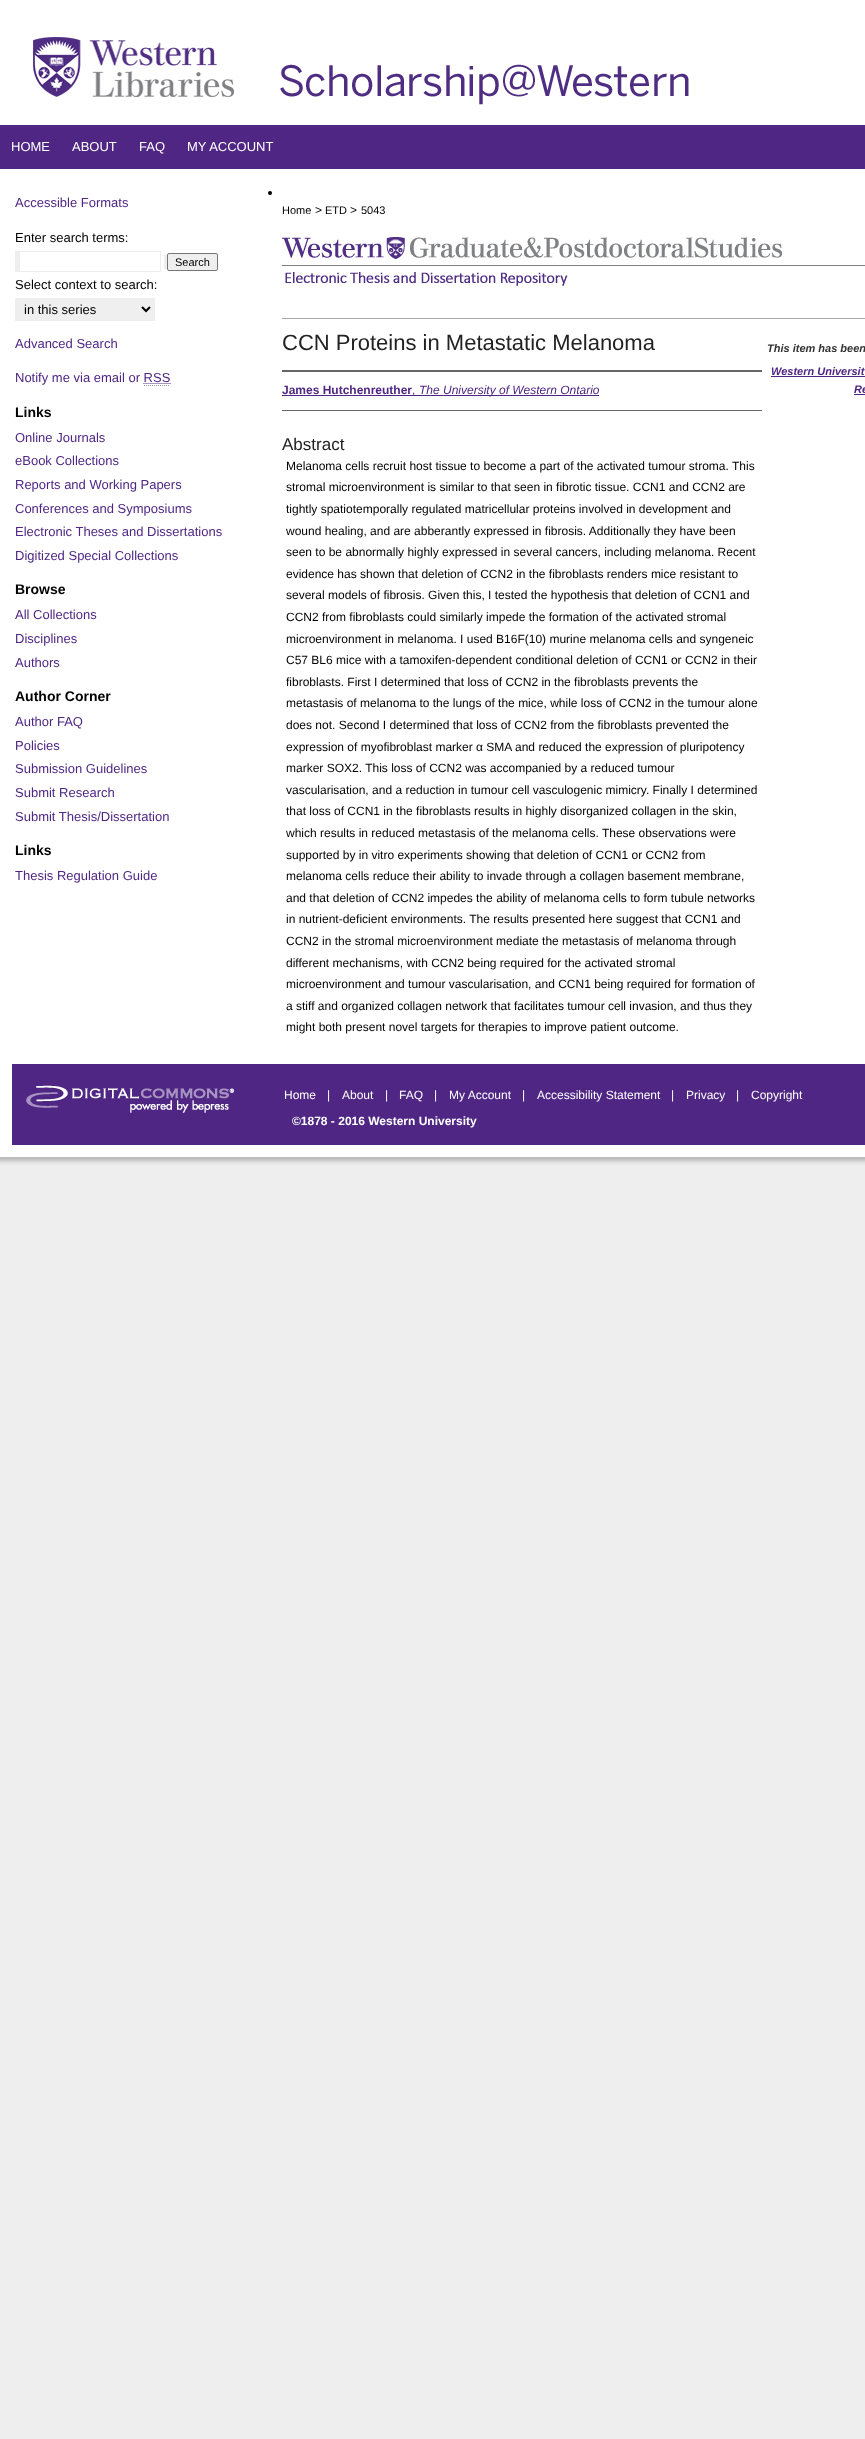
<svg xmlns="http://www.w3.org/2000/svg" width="865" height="2439">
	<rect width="100%" height="100%" fill="#EEEEEE" />
	<rect x="-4" y="-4" width="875" height="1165" fill="#B7B7B7" filter="blur(2px)" />
	<rect x="0" y="0" width="865" height="125" fill="#FFFFFF" />
	<image x="33" y="37" width="201" height="60" href="assets/img1.png" />
	<image x="280" y="64" width="409" height="41" href="assets/img2.png" />
	<rect x="0" y="125" width="865" height="44" fill="#4F2683" />
	<g font-family="Liberation Sans" font-size="13" fill="#FFFFFF">
		<text x="11" y="151">HOME</text>
		<text x="72" y="151">ABOUT</text>
		<text x="139" y="151">FAQ</text>
		<text x="187" y="151">MY ACCOUNT</text>
	</g>
	<rect x="0" y="169" width="865" height="895" fill="#FFFFFF" />
	<text x="15" y="207" font-family="Liberation Sans" font-size="13" fill="#4F2683">Accessible Formats</text>
	<text x="15" y="242" font-family="Liberation Sans" font-size="13" fill="#000000">Enter search terms:</text>
	<rect x="15" y="251" width="146" height="21" fill="#EEEEEE" />
	<rect x="164" y="255" width="3" height="14" fill="#EEEEEE" />
	<rect x="20" y="252" width="140" height="19" fill="#FFFFFF" />
	<rect x="167.5" y="253.5" width="50" height="17" rx="1.5" fill="#EFEFEF" stroke="#767676" />
	<text x="175" y="266" font-family="Liberation Sans" font-size="11" fill="#000000">Search</text>
	<text x="15" y="289" font-family="Liberation Sans" font-size="13" fill="#000000">Select context to search:</text>
	<rect x="20" y="299" width="134" height="21" fill="#EFEFEF" />
	<rect x="15" y="298" width="140" height="1" fill="#EEEEEE" />
	<rect x="154" y="298" width="1" height="23" fill="#EEEEEE" />
	<rect x="15" y="320" width="140" height="1" fill="#EEEEEE" />
	<rect x="15" y="298" width="5" height="23" fill="#EEEEEE" />
	<path d="M142 307L146 311L150 307" fill="none" stroke="#000000" stroke-width="2" />
	<text x="24" y="314" font-family="Liberation Sans" font-size="13" fill="#000000">in this series</text>
	<g font-family="Liberation Sans" font-size="13" fill="#4F2683">
		<text x="15" y="348">Advanced Search</text>
		<text x="15" y="382">Notify me via email or RSS</text>
	</g>
	<path d="M143.5 383.5H170.5" fill="none" stroke="#4F2683" stroke-dasharray="1 1" />
	<path d="M144 385.5H170" fill="none" stroke="#999999" stroke-dasharray="1 1" />
	<text x="15" y="417" font-family="Liberation Sans" font-size="14" font-weight="700" fill="#000000">Links</text>
	<g font-family="Liberation Sans" font-size="13" fill="#4F2683">
		<text x="15" y="442">Online Journals</text>
		<text x="15" y="465">eBook Collections</text>
		<text x="15" y="489">Reports and Working Papers</text>
		<text x="15" y="513">Conferences and Symposiums</text>
		<text x="15" y="536">Electronic Theses and Dissertations</text>
		<text x="15" y="560">Digitized Special Collections</text>
	</g>
	<text x="15" y="594" font-family="Liberation Sans" font-size="14" font-weight="700" fill="#000000">Browse</text>
	<g font-family="Liberation Sans" font-size="13" fill="#4F2683">
		<text x="15" y="619">All Collections</text>
		<text x="15" y="643">Disciplines</text>
		<text x="15" y="667">Authors</text>
	</g>
	<text x="15" y="701" font-family="Liberation Sans" font-size="14" font-weight="700" fill="#000000">Author Corner</text>
	<g font-family="Liberation Sans" font-size="13" fill="#4F2683">
		<text x="15" y="726">Author FAQ</text>
		<text x="15" y="750">Policies</text>
		<text x="15" y="773">Submission Guidelines</text>
		<text x="15" y="797">Submit Research</text>
		<text x="15" y="821">Submit Thesis/Dissertation</text>
	</g>
	<text x="15" y="855" font-family="Liberation Sans" font-size="14" font-weight="700" fill="#000000">Links</text>
	<text x="15" y="880" font-family="Liberation Sans" font-size="13" fill="#4F2683">Thesis Regulation Guide</text>
	<circle cx="270" cy="193" r="2" fill="#000000" />
	<text x="282" y="214" font-family="Liberation Sans" font-size="11" fill="#000000">Home</text>
	<text x="315" y="214" font-family="Liberation Sans" font-size="12" fill="#000000">&gt;</text>
	<text x="325" y="214" font-family="Liberation Sans" font-size="11" fill="#000000">ETD</text>
	<text x="350" y="214" font-family="Liberation Sans" font-size="12" fill="#000000">&gt;</text>
	<text x="361" y="214" font-family="Liberation Sans" font-size="11" fill="#000000">5043</text>
	<image x="282" y="237" width="583" height="49" href="assets/img3.png" />
	<rect x="282" y="318" width="583" height="1" fill="#AAAAAA" />
	<text x="282" y="350" font-family="Liberation Sans" font-size="22" fill="#222222">CCN Proteins in Metastatic Melanoma</text>
	<rect x="282" y="370" width="480" height="2" fill="#666666" />
	<rect x="282" y="410" width="480" height="1" fill="#666666" />
	<text x="282" y="394" font-family="Liberation Sans" font-size="12" font-weight="700" fill="#4F2683">James Hutchenreuther</text>
	<rect x="282" y="395" width="317" height="1" fill="#4F2683" />
	<text x="412" y="394" font-family="Liberation Sans" font-size="12" fill="#4F2683">,</text>
	<text x="419" y="394" font-family="Liberation Sans" font-size="12" font-style="italic" fill="#4F2683">The University of Western Ontario</text>
	<text x="282" y="450" font-family="Liberation Sans" font-size="17" fill="#222222">Abstract</text>
	<g font-family="Liberation Sans" font-size="12" fill="#000000">
		<text x="286" y="470">Melanoma cells recruit host tissue to become a part of the activated tumour stroma. This</text>
		<text x="286" y="491">stromal microenvironment is similar to that seen in fibrotic tissue. CCN1 and CCN2 are</text>
		<text x="286" y="513">tightly spatiotemporally regulated matricellular proteins involved in development and</text>
		<text x="286" y="535">wound healing, and are abberantly expressed in fibrosis. Additionally they have been</text>
		<text x="286" y="556">seen to be abnormally highly expressed in several cancers, including melanoma. Recent</text>
		<text x="286" y="578">evidence has shown that deletion of CCN2 in the fibroblasts renders mice resistant to</text>
		<text x="286" y="599">several models of fibrosis. Given this, I tested the hypothesis that deletion of CCN1 and</text>
		<text x="286" y="621">CCN2 from fibroblasts could similarly impede the formation of the activated stromal</text>
		<text x="286" y="643">microenvironment in melanoma. I used B16F(10) murine melanoma cells and syngeneic</text>
		<text x="286" y="664">C57 BL6 mice with a tamoxifen-dependent conditional deletion of CCN1 or CCN2 in their</text>
		<text x="286" y="686">fibroblasts. First I determined that loss of CCN2 in the fibroblasts prevents the</text>
		<text x="286" y="707">metastasis of melanoma to the lungs of the mice, while loss of CCN2 in the tumour alone</text>
		<text x="286" y="729">does not. Second I determined that loss of CCN2 from the fibroblasts prevented the</text>
		<text x="286" y="751">expression of myofibroblast marker α SMA and reduced the expression of pluripotency</text>
		<text x="286" y="772">marker SOX2. This loss of CCN2 was accompanied by a reduced tumour</text>
		<text x="286" y="794">vascularisation, and a reduction in tumour cell vasculogenic mimicry. Finally I determined</text>
		<text x="286" y="815">that loss of CCN1 in the fibroblasts results in highly disorganized collagen in the skin,</text>
		<text x="286" y="837">which results in reduced metastasis of the melanoma cells. These observations were</text>
		<text x="286" y="859">supported by in vitro experiments showing that deletion of CCN1 or CCN2 from</text>
		<text x="286" y="880">melanoma cells reduce their ability to invade through a collagen basement membrane,</text>
		<text x="286" y="902">and that deletion of CCN2 impedes the ability of melanoma cells to form tubule networks</text>
		<text x="286" y="923">in nutrient-deficient environments. The results presented here suggest that CCN1 and</text>
		<text x="286" y="945">CCN2 in the stromal microenvironment mediate the metastasis of melanoma through</text>
		<text x="286" y="967">different mechanisms, with CCN2 being required for the activated stromal</text>
		<text x="286" y="988">microenvironment and tumour vascularisation, and CCN1 being required for formation of</text>
		<text x="286" y="1010">a stiff and organized collagen network that facilitates tumour cell invasion, and thus they</text>
		<text x="286" y="1031">might both present novel targets for therapies to improve patient outcome.</text>
	</g>
	<text x="767" y="352" font-family="Liberation Sans" font-size="11" font-weight="700" font-style="italic" fill="#333333">This item has been</text>
	<text x="771" y="375" font-family="Liberation Sans" font-size="11" font-weight="700" font-style="italic" fill="#4F2683">Western Universit</text>
	<rect x="771" y="376" width="94" height="1" fill="#4F2683" />
	<text x="854" y="393" font-family="Liberation Sans" font-size="11" font-weight="700" font-style="italic" fill="#4F2683">Re</text>
	<rect x="854" y="394" width="11" height="1" fill="#4F2683" />
	<rect x="12" y="1064" width="853" height="81" fill="#4F2683" />
	<rect x="12" y="1145" width="853" height="12" fill="#FFFFFF" />
	<rect x="0" y="1064" width="12" height="93" fill="#FFFFFF" />
	<image x="26" y="1085" width="208" height="28" href="assets/img4.png" />
	<g font-family="Liberation Sans" font-size="12" fill="#FFFFFF">
		<text x="284" y="1099">Home</text>
		<text x="327" y="1099">|</text>
		<text x="342" y="1099">About</text>
		<text x="385" y="1099">|</text>
		<text x="399" y="1099">FAQ</text>
		<text x="434" y="1099">|</text>
		<text x="449" y="1099">My Account</text>
		<text x="522" y="1099">|</text>
		<text x="537" y="1099">Accessibility Statement</text>
		<text x="671" y="1099">|</text>
		<text x="686" y="1099">Privacy</text>
		<text x="736" y="1099">|</text>
		<text x="751" y="1099">Copyright</text>
	</g>
	<text x="292" y="1125" font-family="Liberation Sans" font-size="12" font-weight="700" fill="#FFFFFF">©1878 - 2016 Western University</text>
</svg>
